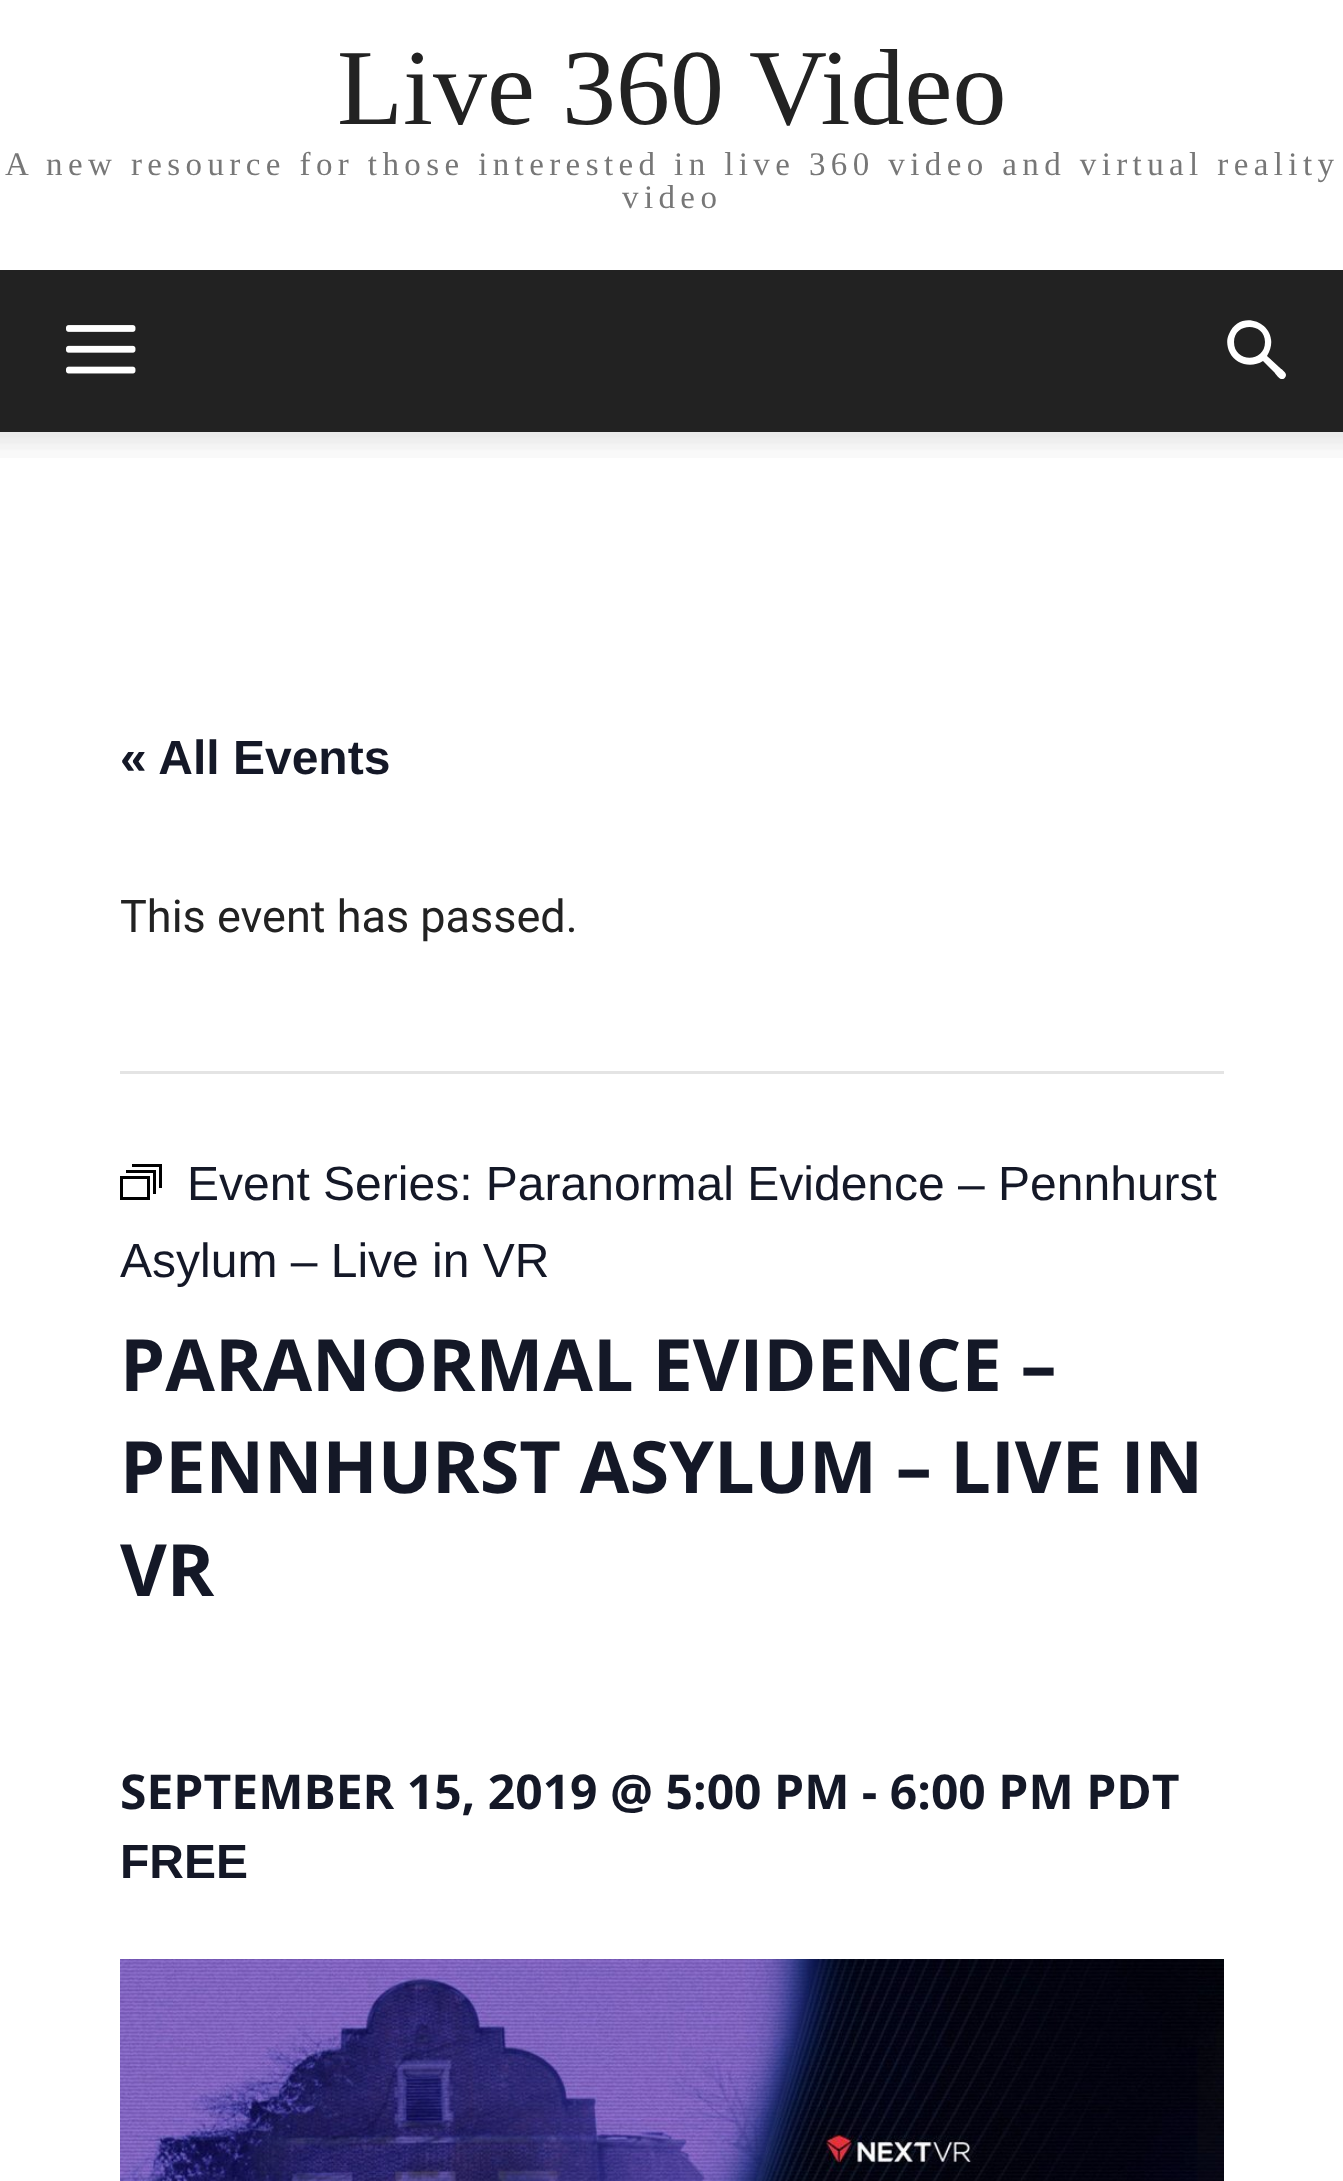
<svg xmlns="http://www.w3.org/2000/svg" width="1343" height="2181">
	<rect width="100%" height="100%" fill="#FFFFFF" />
	<text x="337" y="124" font-family="Liberation Serif" font-size="108" fill="#222222">Live 360 Video</text>
	<g font-family="Liberation Serif" font-size="33" letter-spacing="5.4" fill="#777777">
		<text x="5" y="175">A new resource for those interested in live 360 video and virtual reality</text>
		<text x="622" y="208">video</text>
	</g>
	<rect x="0" y="270" width="1343" height="162" fill="#222222" />
	<image x="66" y="325" width="70" height="49" href="assets/img1.png" />
	<path d="M1265 342C1265 363 1234 363 1234 342C1234 322 1265 322 1265 342ZM1286 375C1286 372 1281 369 1279 367L1267 356C1285 326 1241 305 1229 334C1226 340 1227 347 1230 353C1236 365 1252 368 1263 361L1274 372C1276 374 1279 380 1283 379C1284 379 1286 377 1286 375Z" fill="#FFFFFF" />
	<image x="0" y="432" width="1343" height="26" href="assets/img2.png" />
	<text x="120" y="774" font-family="Liberation Sans" font-size="48" font-weight="700" fill="#141827">« All Events</text>
	<rect x="120" y="1071" width="1104" height="3" fill="#E4E4E4" />
	<text x="120" y="932" font-family="Roboto" font-size="45" fill="#222222">This event has passed.</text>
	<rect x="121.5" y="1177.5" width="27" height="21" fill="none" stroke="#000000" stroke-width="3" />
	<path d="M126 1171.5H154.5V1194M132 1165.5H160.5V1188" fill="none" stroke="#000000" stroke-width="3" />
	<g font-family="Liberation Sans" font-size="48" fill="#141827">
		<text x="187" y="1200">Event Series: Paranormal Evidence – Pennhurst</text>
		<text x="120" y="1277">Asylum – Live in VR</text>
	</g>
	<g font-family="Open Sans" font-size="72" font-weight="700" fill="#141827">
		<text x="120" y="1391">PARANORMAL EVIDENCE –</text>
		<text x="120" y="1493">PENNHURST ASYLUM – LIVE IN</text>
		<text x="120" y="1596">VR</text>
	</g>
	<text x="120" y="1809" font-family="Open Sans" font-size="48" font-weight="700" fill="#141827">SEPTEMBER 15, 2019 @ 5:00 PM - 6:00 PM PDT</text>
	<text x="120" y="1878" font-family="Liberation Sans" font-size="48" font-weight="700" fill="#141827">FREE</text>
	<image x="120" y="1959" width="1104" height="222" href="assets/img3.png" />
</svg>
